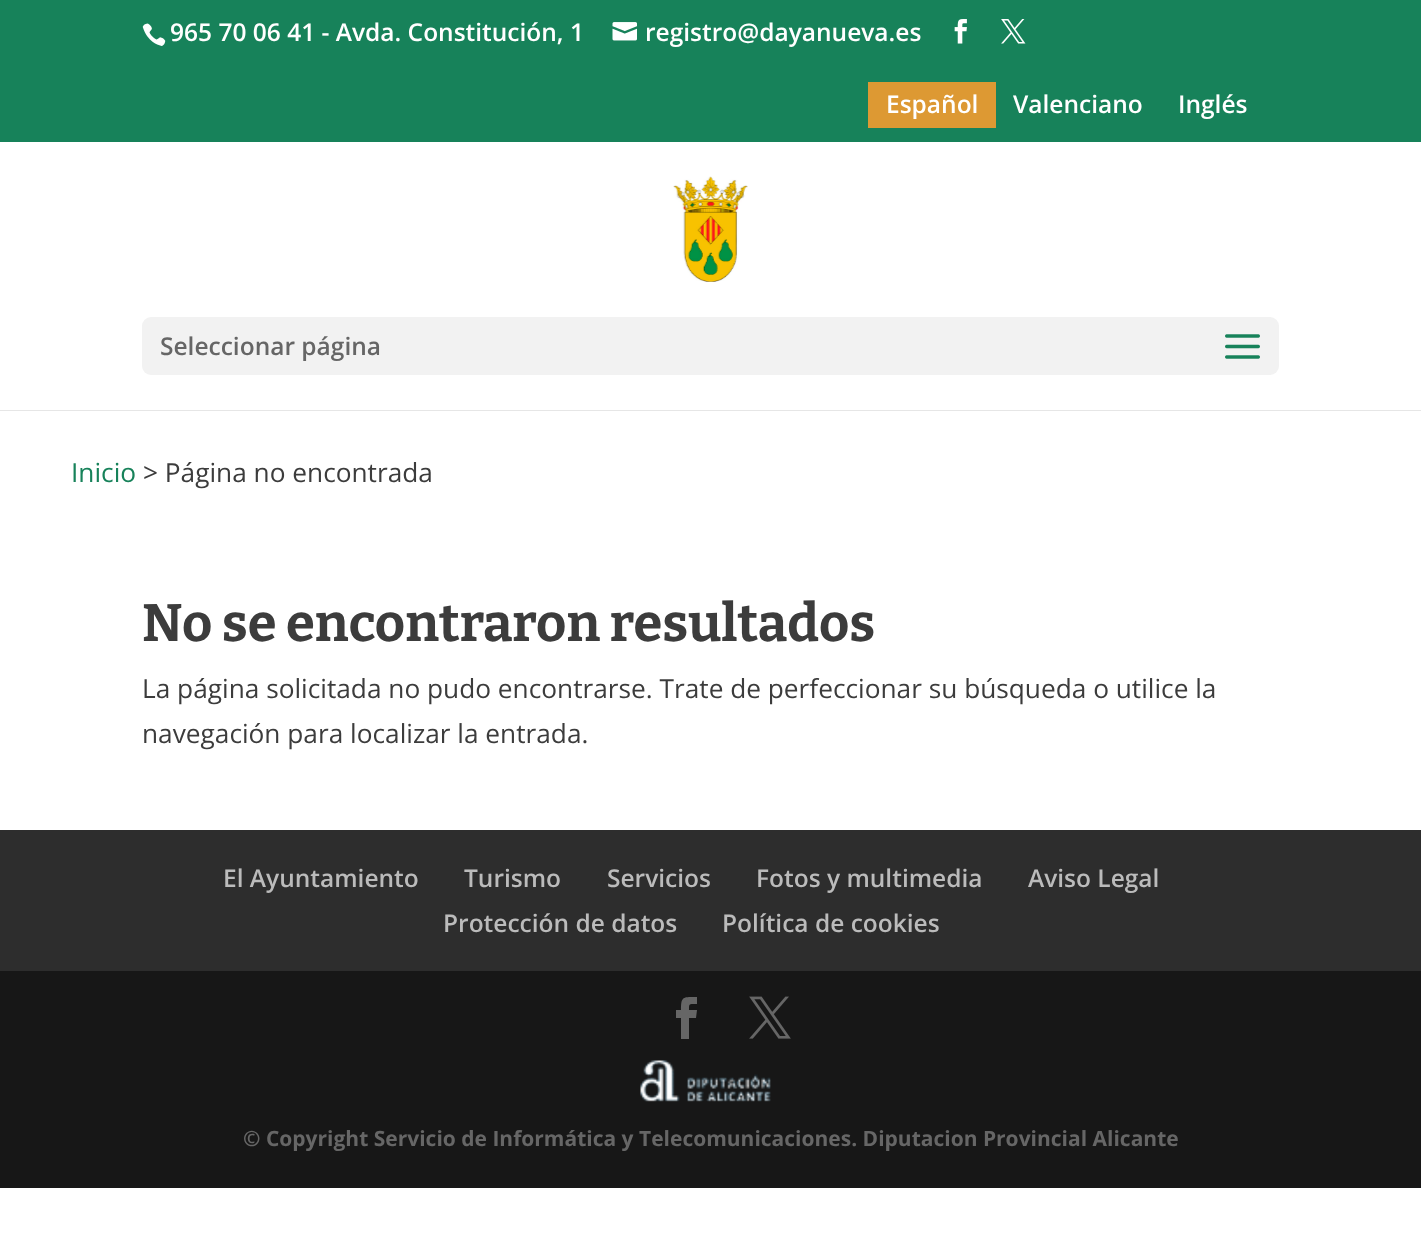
<svg xmlns="http://www.w3.org/2000/svg" width="1421" height="1236">
	<rect width="100%" height="100%" fill="#FFFFFF" />
	<rect x="0" y="0" width="1421" height="142" fill="#17825A" />
	<image x="142" y="23" width="24" height="23" href="assets/img1.png" />
	<text x="170" y="41" font-family="Open Sans" font-size="24.5" font-weight="600" fill="#FFFFFF">965 70 06 41 - Avda. Constitución, 1</text>
	<image x="612" y="22" width="25" height="19" href="assets/img2.png" />
	<text x="645" y="41" font-family="Open Sans" font-size="24.5" font-weight="600" fill="#FFFFFF">registro@dayanueva.es</text>
	<image x="954" y="19" width="13" height="25" href="assets/img3.png" />
	<image x="1001" y="19" width="25" height="25" href="assets/img4.png" />
	<rect x="868" y="82" width="128" height="46" fill="#DD9933" />
	<g font-family="Open Sans" font-size="24.5" font-weight="600" fill="#FFFFFF">
		<text x="886" y="113">Español</text>
		<text x="1013" y="113">Valenciano</text>
		<text x="1178" y="113">Inglés</text>
	</g>
	<rect x="0" y="410" width="1421" height="1" fill="#E6E6E6" />
	<image x="673" y="176" width="75" height="106" href="assets/img5.png" />
	<rect x="142" y="317" width="1137" height="58" rx="9" fill="#F2F2F2" />
	<text x="160" y="355" font-family="Open Sans" font-size="24.5" font-weight="600" fill="#666666">Seleccionar página</text>
	<image x="1225" y="334" width="35" height="25" href="assets/img6.png" />
	<text x="71" y="482" font-family="Open Sans" font-size="26.25" fill="#17825A">Inicio</text>
	<text x="143" y="482" font-family="Open Sans" font-size="26.25" fill="#3C3C3C">&gt; Página no encontrada</text>
	<text x="142" y="641" font-family="Bitter" font-size="52.5" font-weight="700" fill="#3C3C3C">No se encontraron resultados</text>
	<g font-family="Open Sans" font-size="26.25" fill="#3C3C3C">
		<text x="142" y="698">La página solicitada no pudo encontrarse. Trate de perfeccionar su búsqueda o utilice la</text>
		<text x="142" y="743">navegación para localizar la entrada.</text>
	</g>
	<rect x="0" y="830" width="1421" height="141" fill="#2D2D2D" />
	<g font-family="Open Sans" font-size="24.5" font-weight="600" fill="#BBBBBB">
		<text x="223" y="887">El Ayuntamiento</text>
		<text x="464" y="887">Turismo</text>
		<text x="607" y="887">Servicios</text>
		<text x="756" y="887">Fotos y multimedia</text>
		<text x="1028" y="887">Aviso Legal</text>
		<text x="443" y="932">Protección de datos</text>
		<text x="722" y="932">Política de cookies</text>
	</g>
	<rect x="0" y="971" width="1421" height="217" fill="#171717" />
	<path d="M681 1039H689V1018H696L697 1010H689C689 1003 689 1004 697 1004V997C683 997 681 996 681 1010H676V1018H681Z" fill="#666666" />
	<image x="749" y="996" width="42" height="43" href="assets/img7.png" />
	<image x="640" y="1060" width="131" height="42" href="assets/img8.png" />
	<text x="243" y="1146" font-family="Open Sans" font-size="21" font-weight="700" fill="#666666">© Copyright Servicio de Informática y Telecomunicaciones. Diputacion Provincial Alicante</text>
</svg>
